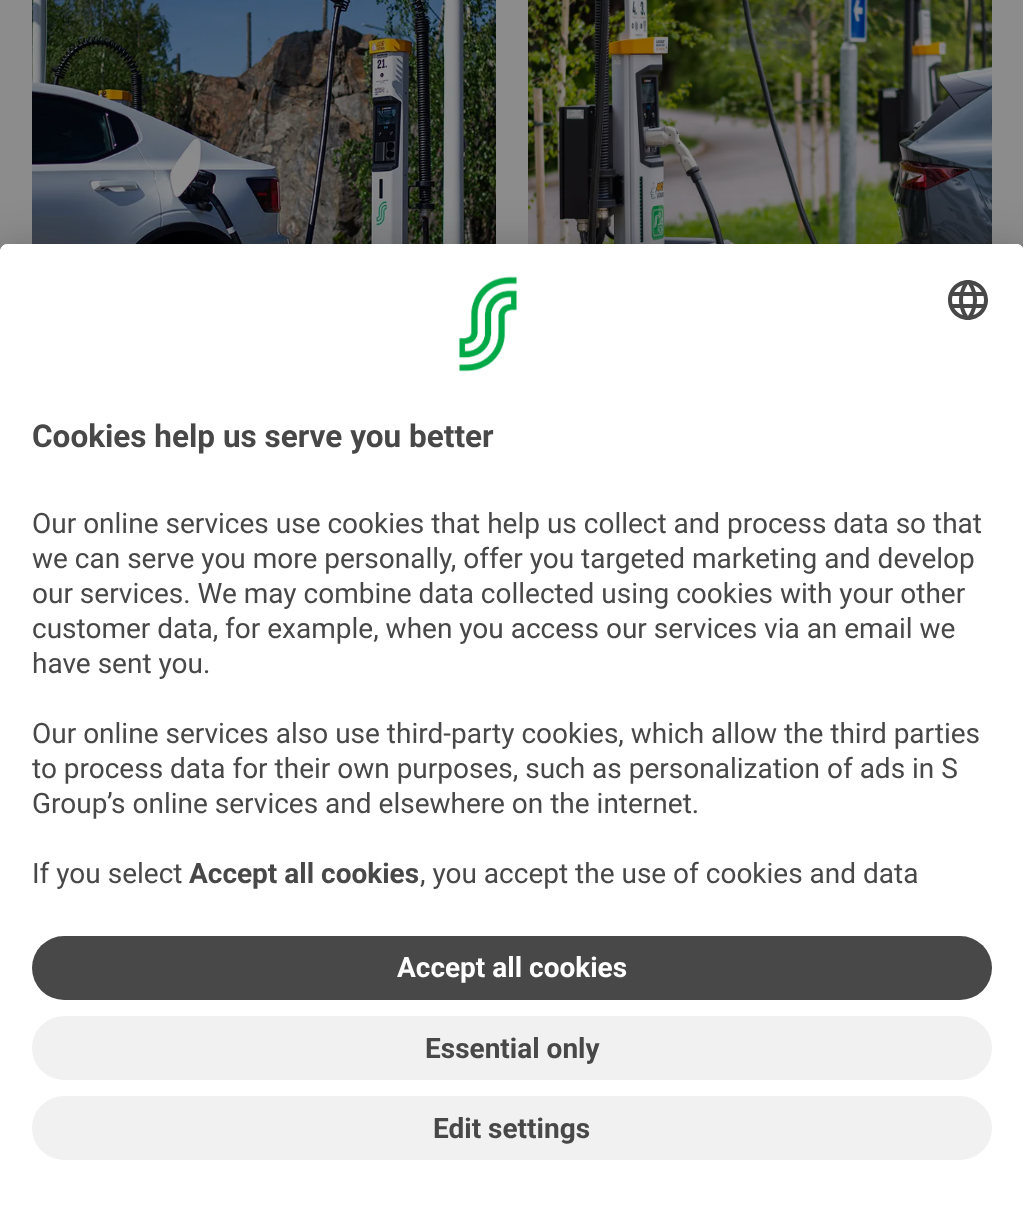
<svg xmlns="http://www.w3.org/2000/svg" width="1023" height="1215">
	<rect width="100%" height="100%" fill="#8C8C8C" />
	<image x="32" y="0" width="464" height="244" href="assets/img1.png" />
	<image x="528" y="0" width="464" height="244" href="assets/img2.png" />
	<rect x="0" y="284" width="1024" height="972" rx="8" fill="#000000" fill-opacity="0.3" filter="blur(28px)" />
	<rect x="0" y="254" width="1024" height="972" rx="8" fill="#000000" fill-opacity="0.22" filter="blur(26px)" />
	<path d="M8 244H1016C1020.5 244 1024 247.5 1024 252V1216H0V252C0 247.5 3.5 244 8 244Z" fill="#FFFFFF" />
	<path d="M8 244H1016C1020.5 244 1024 247.5 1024 252V912H0V252C0 247.5 3.5 244 8 244Z" fill="#FFFFFF" />
	<image x="458" y="276" width="60" height="96" href="assets/img3.png" />
	<image x="948" y="280" width="40" height="40" href="assets/img4.png" />
	<text x="32" y="447" font-family="Roboto" font-size="31.5" font-weight="700" fill="#484848">Cookies help us serve you better</text>
	<g font-family="Roboto" font-size="28" fill="#484848">
		<text x="32" y="533">Our online services use cookies that help us collect and process data so that</text>
		<text x="32" y="568">we can serve you more personally, offer you targeted marketing and develop</text>
		<text x="32" y="603">our services. We may combine data collected using cookies with your other</text>
		<text x="32" y="638">customer data, for example, when you access our services via an email we</text>
		<text x="32" y="673">have sent you.</text>
		<text x="32" y="743">Our online services also use third-party cookies, which allow the third parties</text>
		<text x="32" y="778">to process data for their own purposes, such as personalization of ads in S</text>
		<text x="32" y="813">Group’s online services and elsewhere on the internet.</text>
		<text x="32" y="883">If you select</text>
	</g>
	<text x="189" y="883" font-family="Roboto" font-size="28" font-weight="700" fill="#484848">Accept all cookies</text>
	<text x="420" y="883" font-family="Roboto" font-size="28" fill="#484848">, you accept the use of cookies and data</text>
	<rect x="32" y="936" width="960" height="64" rx="32" fill="#484848" />
	<text x="397" y="977" font-family="Roboto" font-size="28" font-weight="700" fill="#FFFFFF">Accept all cookies</text>
	<rect x="32" y="1016" width="960" height="64" rx="32" fill="#F1F1F1" />
	<text x="425" y="1058" font-family="Roboto" font-size="28" font-weight="700" fill="#484848">Essential only</text>
	<rect x="32" y="1096" width="960" height="64" rx="32" fill="#F1F1F1" />
	<text x="433" y="1138" font-family="Roboto" font-size="28" font-weight="700" fill="#484848">Edit settings</text>
</svg>
